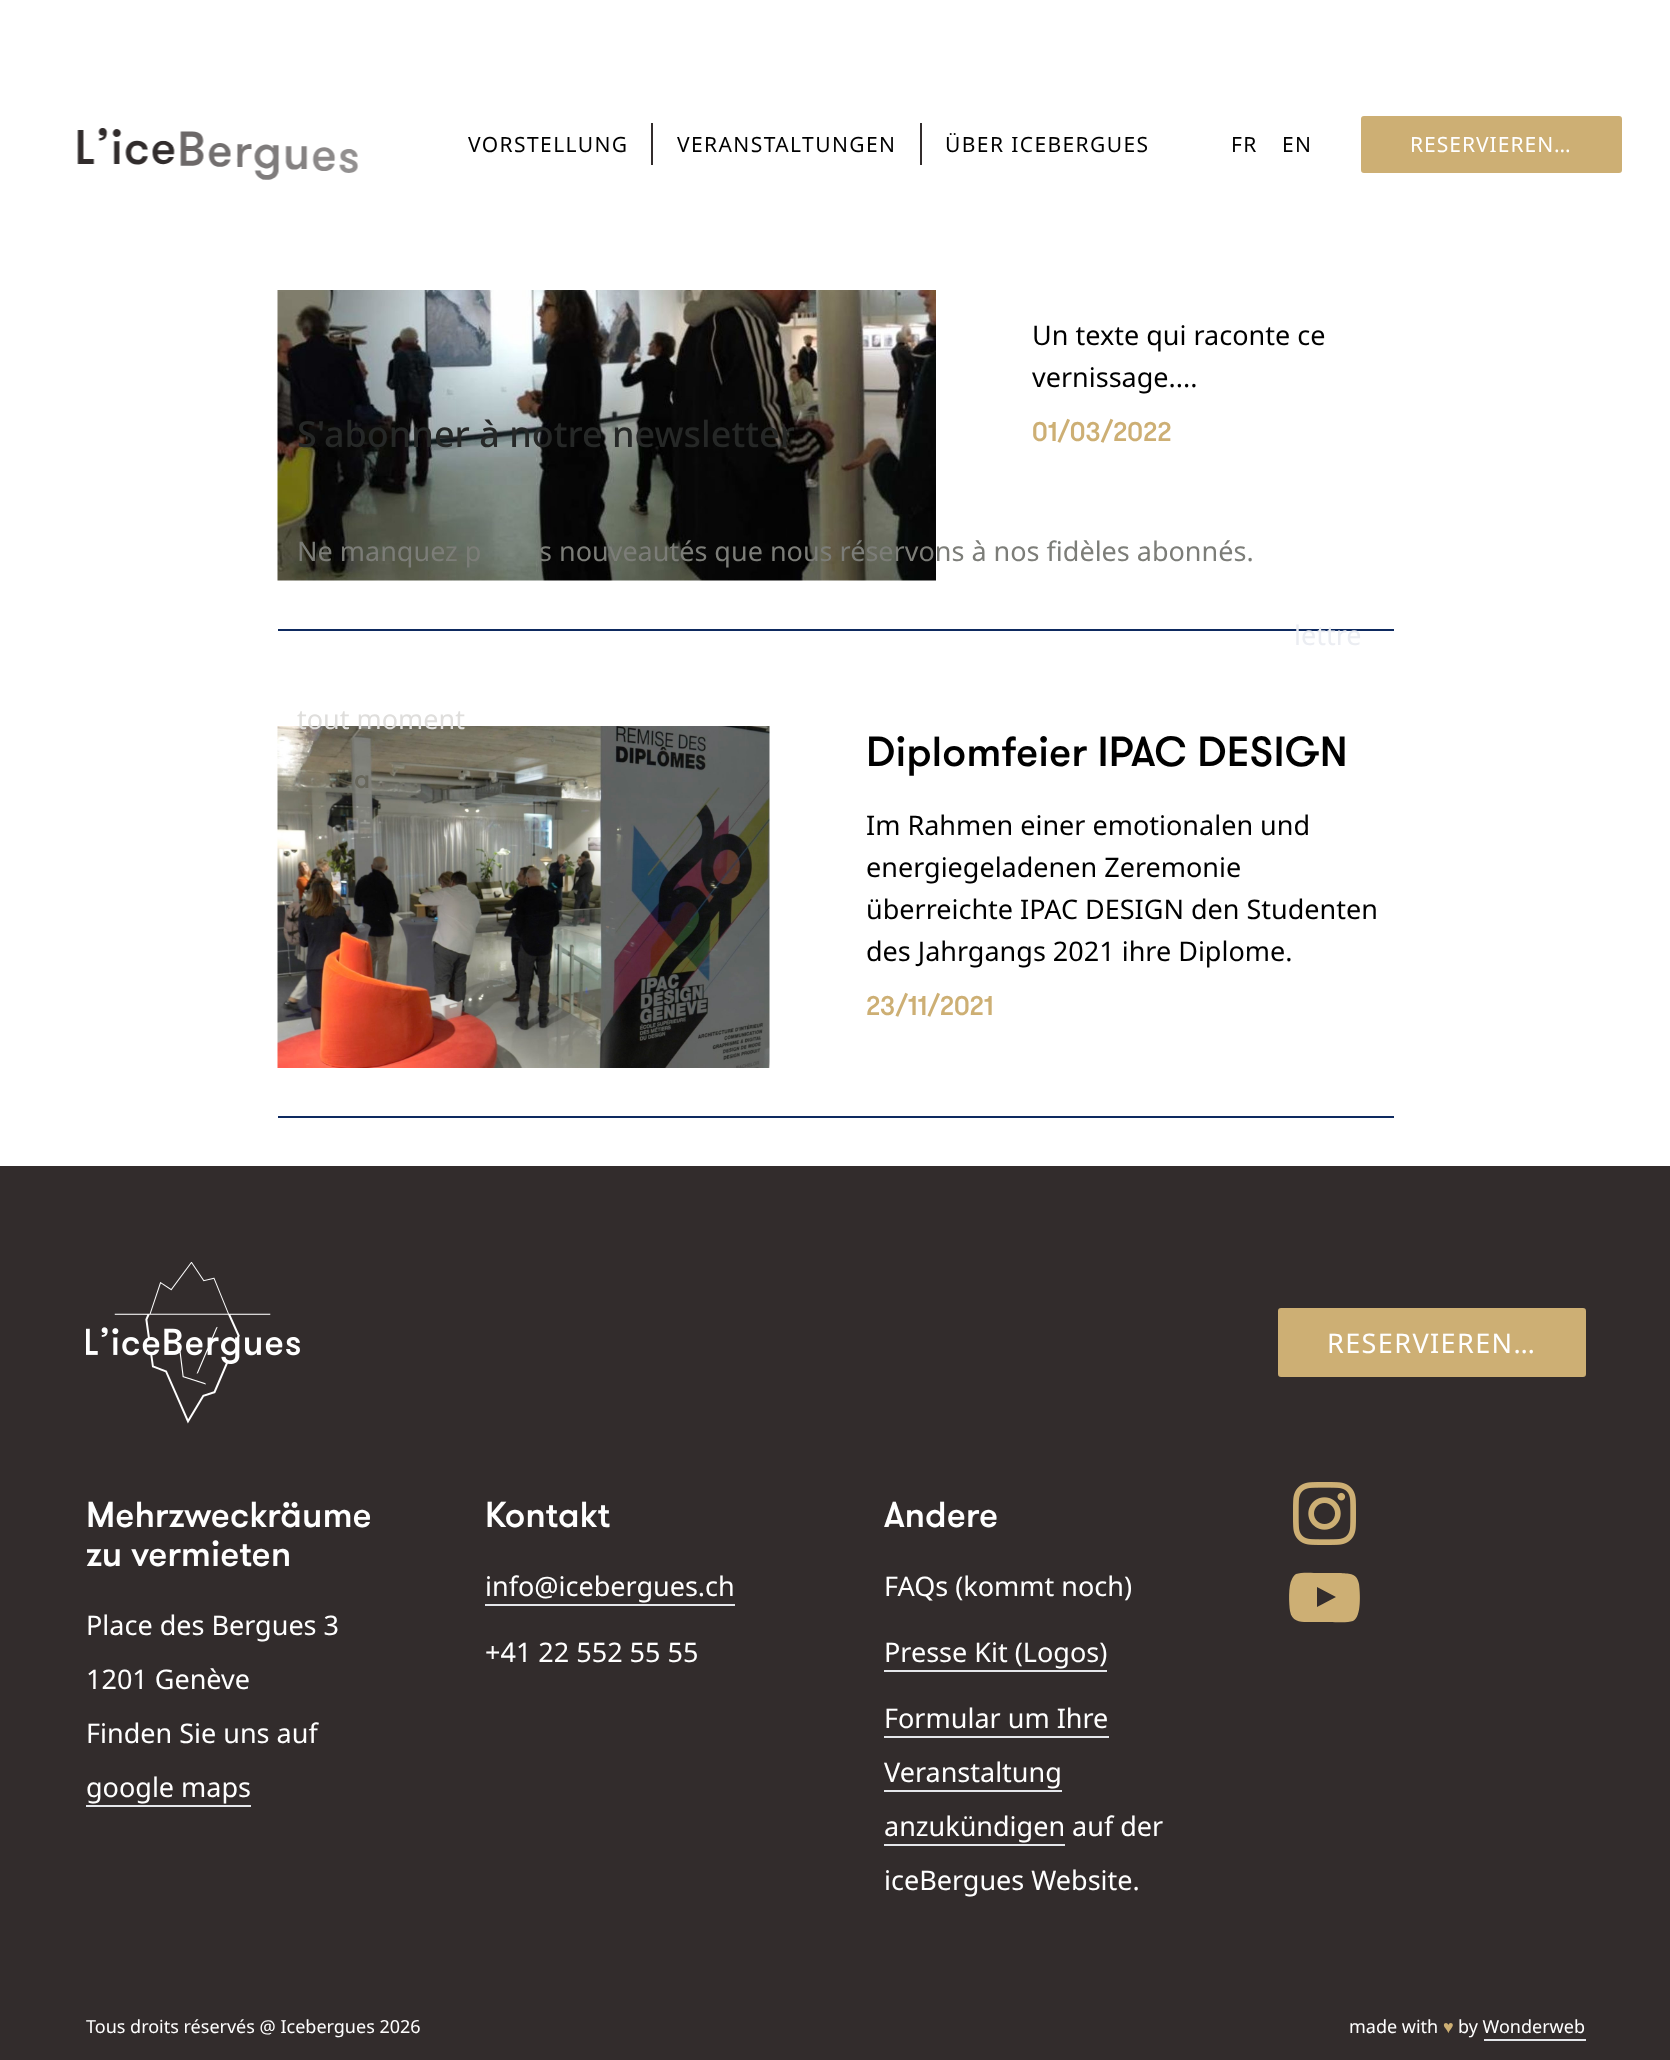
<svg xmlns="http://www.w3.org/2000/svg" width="1670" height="2060">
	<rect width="100%" height="100%" fill="#FFFFFF" />
	<image x="77" y="128" width="282" height="52" href="assets/img1.png" />
	<text x="468" y="152" font-family="Noto Sans" font-size="21" letter-spacing="1.4" fill="#000000">VORSTELLUNG</text>
	<rect x="651" y="123" width="2" height="42" fill="#322C2C" />
	<text x="677" y="152" font-family="Noto Sans" font-size="21" letter-spacing="1.4" fill="#000000">VERANSTALTUNGEN</text>
	<rect x="920" y="123" width="2" height="42" fill="#322C2C" />
	<g font-family="Noto Sans" font-size="21" letter-spacing="1.4" fill="#000000">
		<text x="945" y="152">ÜBER ICEBERGUES</text>
		<text x="1231" y="152">FR</text>
		<text x="1282" y="152">EN</text>
	</g>
	<rect x="1362" y="117" width="259" height="55" rx="2" fill="#CDAF74" stroke="#CDAF74" stroke-width="2" />
	<text x="1410" y="152" font-family="Noto Sans" font-size="21" letter-spacing="1" fill="#FFFFFF">RESERVIEREN…</text>
	<rect x="278" y="629" width="1116" height="2" fill="#0E2A60" />
	<image x="277" y="290" width="659" height="291" href="assets/img2.png" />
	<g font-family="Noto Sans" font-size="27" fill="#000000">
		<text x="1032" y="345">Un texte qui raconte ce</text>
		<text x="1032" y="387">vernissage....</text>
	</g>
	<text x="1032" y="441" font-family="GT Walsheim" font-size="27" font-weight="500" fill="#CDAF74">01/03/2022</text>
	<rect x="278" y="1116" width="1116" height="2" fill="#0E2A60" />
	<image x="277" y="726" width="493" height="342" href="assets/img3.png" />
	<text x="866" y="766" font-family="GT Walsheim" font-size="42" font-weight="500" fill="#000000">Diplomfeier IPAC DESIGN</text>
	<g font-family="Noto Sans" font-size="27" fill="#000000">
		<text x="866" y="835">Im Rahmen einer emotionalen und</text>
		<text x="866" y="877">energiegeladenen Zeremonie</text>
		<text x="866" y="919">überreichte IPAC DESIGN den Studenten</text>
		<text x="866" y="961">des Jahrgangs 2021 ihre Diplome.</text>
	</g>
	<text x="866" y="1015" font-family="GT Walsheim" font-size="27" font-weight="500" fill="#CDAF74">23/11/2021</text>
	<rect x="0" y="1166" width="1670" height="894" fill="#322C2C" />
	<image x="86" y="1262" width="214" height="162" href="assets/img4.png" />
	<rect x="1279" y="1309" width="306" height="67" rx="2" fill="#CDAF74" stroke="#CDAF74" stroke-width="2" />
	<text x="1327" y="1353" font-family="Noto Sans" font-size="27" letter-spacing="1.4" fill="#FFFFFF">RESERVIEREN…</text>
	<g font-family="GT Walsheim" font-size="36" font-weight="500" fill="#FFFFFF">
		<text x="86" y="1527">Mehrzweckräume</text>
		<text x="86" y="1566">zu vermieten</text>
	</g>
	<g font-family="Noto Sans" font-size="27" fill="#FFFFFF">
		<text x="86" y="1635">Place des Bergues 3</text>
		<text x="86" y="1689">1201 Genève</text>
		<text x="86" y="1743">Finden Sie uns auf</text>
		<text x="86" y="1797">google maps</text>
	</g>
	<rect x="86" y="1805" width="165" height="2" fill="#E5E7EB" />
	<text x="485" y="1527" font-family="GT Walsheim" font-size="36" font-weight="500" fill="#FFFFFF">Kontakt</text>
	<text x="485" y="1596" font-family="Noto Sans" font-size="27" fill="#FFFFFF">info@icebergues.ch</text>
	<rect x="485" y="1604" width="250" height="2" fill="#E5E7EB" />
	<text x="485" y="1662" font-family="Noto Sans" font-size="27" fill="#FFFFFF">+41 22 552 55 55</text>
	<text x="884" y="1527" font-family="GT Walsheim" font-size="36" font-weight="500" fill="#FFFFFF">Andere</text>
	<g font-family="Noto Sans" font-size="27" fill="#FFFFFF">
		<text x="884" y="1596">FAQs (kommt noch)</text>
		<text x="884" y="1662">Presse Kit (Logos)</text>
	</g>
	<rect x="884" y="1670" width="223" height="2" fill="#E5E7EB" />
	<text x="884" y="1728" font-family="Noto Sans" font-size="27" fill="#FFFFFF">Formular um Ihre</text>
	<rect x="884" y="1736" width="225" height="2" fill="#E5E7EB" />
	<text x="884" y="1782" font-family="Noto Sans" font-size="27" fill="#FFFFFF">Veranstaltung</text>
	<rect x="884" y="1790" width="178" height="2" fill="#E5E7EB" />
	<text x="884" y="1836" font-family="Noto Sans" font-size="27" fill="#FFFFFF">anzukündigen auf der</text>
	<rect x="884" y="1844" width="181" height="2" fill="#E5E7EB" />
	<text x="884" y="1890" font-family="Noto Sans" font-size="27" fill="#FFFFFF">iceBergues Website.</text>
	<image x="1293" y="1482" width="63" height="63" href="assets/img5.png" />
	<path d="M1359 1584C1357 1573 1350 1574 1341 1573H1319C1314 1573 1301 1572 1296 1574C1294 1575 1293 1577 1292 1579C1288 1586 1289 1604 1290 1611C1292 1623 1302 1622 1311 1622H1330C1335 1622 1348 1623 1353 1621C1362 1617 1360 1591 1359 1584ZM1317 1607V1587L1336 1597Z" fill="#CDAF74" />
	<g font-family="Noto Sans" font-size="18" fill="#FFFFFF">
		<text x="86" y="2033">Tous droits réservés @ Icebergues 2026</text>
		<text x="1349" y="2033">made with</text>
	</g>
	<text x="1443" y="2033" font-family="Liberation Serif" font-size="18" fill="#CDAF74">♥</text>
	<text x="1458" y="2033" font-family="Noto Sans" font-size="18" fill="#FFFFFF">by Wonderweb</text>
	<rect x="1484" y="2039" width="102" height="2" fill="#E5E7EB" />
	<text x="297" y="447" font-family="Noto Sans" font-size="36" font-weight="500" fill="#262827">S'abonner à notre newsletter</text>
	<g font-family="Noto Sans" font-size="27" fill="#7C7D78">
		<text x="297" y="561">Ne manquez p</text>
		<text x="539" y="561">s nouveautés que nous réservons à nos fidèles abonnés.</text>
	</g>
	<text x="1294" y="645" font-family="Noto Sans" font-size="27" fill="#EBEDF2">lettre</text>
	<text x="297" y="729" font-family="Noto Sans" font-size="27" fill="#DFDEDC">tout moment</text>
	<text x="354" y="788" font-family="GT Walsheim" font-size="27" font-weight="500" fill="#67665B">a</text>
</svg>
